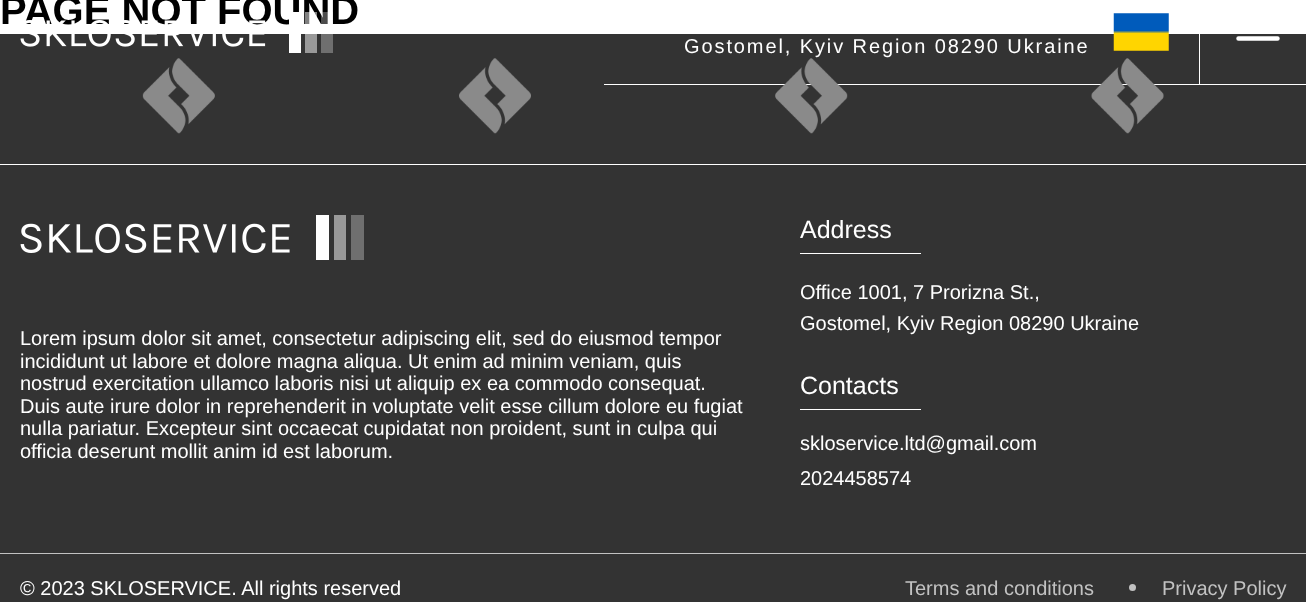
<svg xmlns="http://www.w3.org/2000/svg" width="1306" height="602">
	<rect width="100%" height="100%" fill="#FFFFFF" />
	<text x="0" y="24" font-family="Liberation Sans" font-size="40" font-weight="700" fill="#000000">PAGE NOT FOUND</text>
	<rect x="0" y="34" width="1306" height="130" fill="#333333" />
	<image x="142" y="58" width="73" height="76" href="assets/img1.png" />
	<image x="459" y="58" width="72" height="76" href="assets/img2.png" />
	<rect x="1199" y="34" width="1" height="51" fill="#FFFFFF" />
	<rect x="604" y="84" width="702" height="1" fill="#FFFFFF" />
	<image x="775" y="58" width="73" height="76" href="assets/img3.png" />
	<image x="1091" y="58" width="73" height="76" href="assets/img4.png" />
	<image x="20" y="12" width="313" height="41" href="assets/img5.png" />
	<image x="1113" y="13" width="56" height="38" href="assets/img6.png" />
	<path d="M1238.5 38.5H1277.5M1238.5 25H1277.5" fill="none" stroke="#FFFFFF" stroke-width="4.5" stroke-linecap="round" stroke-linejoin="round" />
	<text x="684" y="53" font-family="Liberation Sans" font-size="20" letter-spacing="1.9" fill="#FFFFFF">Gostomel, Kyiv Region 08290 Ukraine</text>
	<rect x="0" y="165" width="1306" height="437" fill="#333333" />
	<image x="20" y="215" width="344" height="45" href="assets/img7.png" />
	<g font-family="Liberation Sans" font-size="20" fill="#FFFFFF">
		<text x="20" y="345">Lorem ipsum dolor sit amet, consectetur adipiscing elit, sed do eiusmod tempor</text>
		<text x="20" y="368">incididunt ut labore et dolore magna aliqua. Ut enim ad minim veniam, quis</text>
		<text x="20" y="390">nostrud exercitation ullamco laboris nisi ut aliquip ex ea commodo consequat.</text>
		<text x="20" y="413">Duis aute irure dolor in reprehenderit in voluptate velit esse cillum dolore eu fugiat</text>
		<text x="20" y="435">nulla pariatur. Excepteur sint occaecat cupidatat non proident, sunt in culpa qui</text>
		<text x="20" y="458">officia deserunt mollit anim id est laborum.</text>
	</g>
	<text x="800" y="238" font-family="Liberation Sans" font-size="25" fill="#FFFFFF">Address</text>
	<rect x="800" y="253" width="121" height="1" fill="#FFFFFF" />
	<g font-family="Liberation Sans" font-size="20" fill="#FFFFFF">
		<text x="800" y="299">Office 1001, 7 Prorizna St.,</text>
		<text x="800" y="330">Gostomel, Kyiv Region 08290 Ukraine</text>
	</g>
	<text x="800" y="394" font-family="Liberation Sans" font-size="25" fill="#FFFFFF">Contacts</text>
	<rect x="800" y="409" width="121" height="1" fill="#FFFFFF" />
	<g font-family="Liberation Sans" font-size="20" fill="#FFFFFF">
		<text x="800" y="450">skloservice.ltd@gmail.com</text>
		<text x="800" y="485">2024458574</text>
	</g>
	<rect x="0" y="553" width="1306" height="1" fill="#C2C2C2" />
	<text x="20" y="595" font-family="Liberation Sans" font-size="20" fill="#FFFFFF">© 2023 SKLOSERVICE. All rights reserved</text>
	<text x="905" y="595" font-family="Liberation Sans" font-size="20" fill="#C2C2C2">Terms and conditions</text>
	<circle cx="1132.5" cy="587.5" r="3.5" fill="#C2C2C2" />
	<text x="1162" y="595" font-family="Liberation Sans" font-size="20" fill="#C2C2C2">Privacy Policy</text>
</svg>
